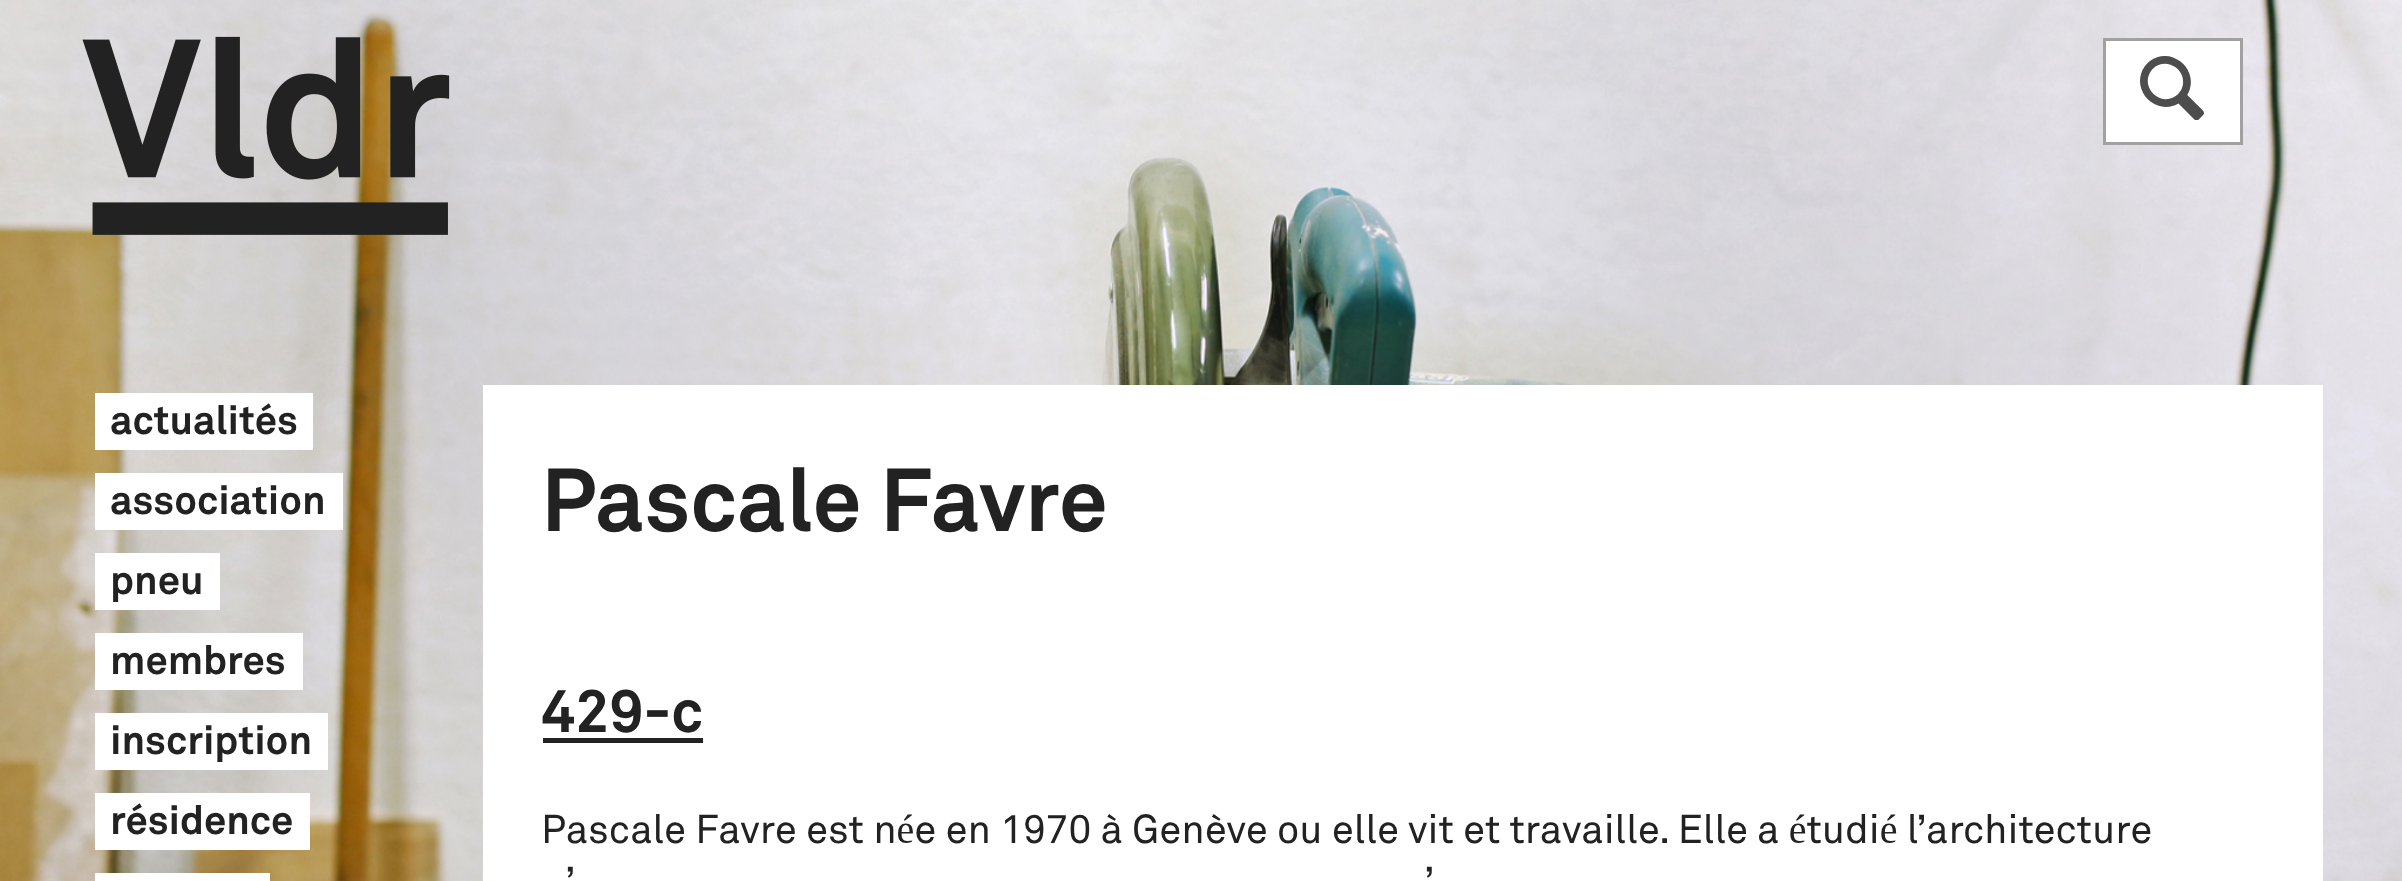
<svg xmlns="http://www.w3.org/2000/svg" width="2402" height="881">
	<rect width="100%" height="100%" fill="#FFFFFF" />
	<image x="0" y="0" width="2402" height="881" href="assets/img1.png" />
	<image x="82" y="36" width="368" height="199" href="assets/img2.png" />
	<rect x="2104.5" y="39.5" width="137" height="104" fill="#FFFFFF" stroke="#A1A1A1" stroke-width="3" />
	<text x="2140" y="116" font-family="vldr" font-size="64" fill="#4E4D4D">R</text>
	<rect x="95" y="393" width="218" height="57" fill="#FFFFFF" />
	<text x="110" y="434" font-family="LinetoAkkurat" font-size="40" font-weight="700" fill="#222222">actualités</text>
	<rect x="95" y="473" width="248" height="57" fill="#FFFFFF" />
	<text x="110" y="514" font-family="LinetoAkkurat" font-size="40" font-weight="700" fill="#222222">association</text>
	<rect x="95" y="553" width="125" height="57" fill="#FFFFFF" />
	<text x="110" y="594" font-family="LinetoAkkurat" font-size="40" font-weight="700" fill="#222222">pneu</text>
	<rect x="95" y="633" width="208" height="57" fill="#FFFFFF" />
	<text x="110" y="674" font-family="LinetoAkkurat" font-size="40" font-weight="700" fill="#222222">membres</text>
	<rect x="95" y="713" width="233" height="57" fill="#FFFFFF" />
	<text x="110" y="754" font-family="LinetoAkkurat" font-size="40" font-weight="700" fill="#222222">inscription</text>
	<rect x="95" y="793" width="215" height="57" fill="#FFFFFF" />
	<text x="110" y="834" font-family="LinetoAkkurat" font-size="40" font-weight="700" fill="#222222">résidence</text>
	<rect x="95" y="873" width="175" height="8" fill="#FFFFFF" />
	<rect x="483" y="385" width="1840" height="496" fill="#FFFFFF" />
	<text x="541" y="531" font-family="LinetoAkkurat" font-size="88" font-weight="700" fill="#222222">Pascale Favre</text>
	<text x="541" y="732" font-family="LinetoAkkurat" font-size="60" font-weight="700" fill="#222222">429-c</text>
	<rect x="543" y="738" width="160" height="5" fill="#222222" />
	<g font-family="LinetoAkkurat" font-size="40" fill="#222222">
		<text x="541" y="843">Pascale Favre est née en 1970 à Genève ou elle vit et travaille. Elle a étudié l’architecture</text>
		<text x="565" y="895">’</text>
		<text x="1424" y="895">’</text>
	</g>
</svg>
